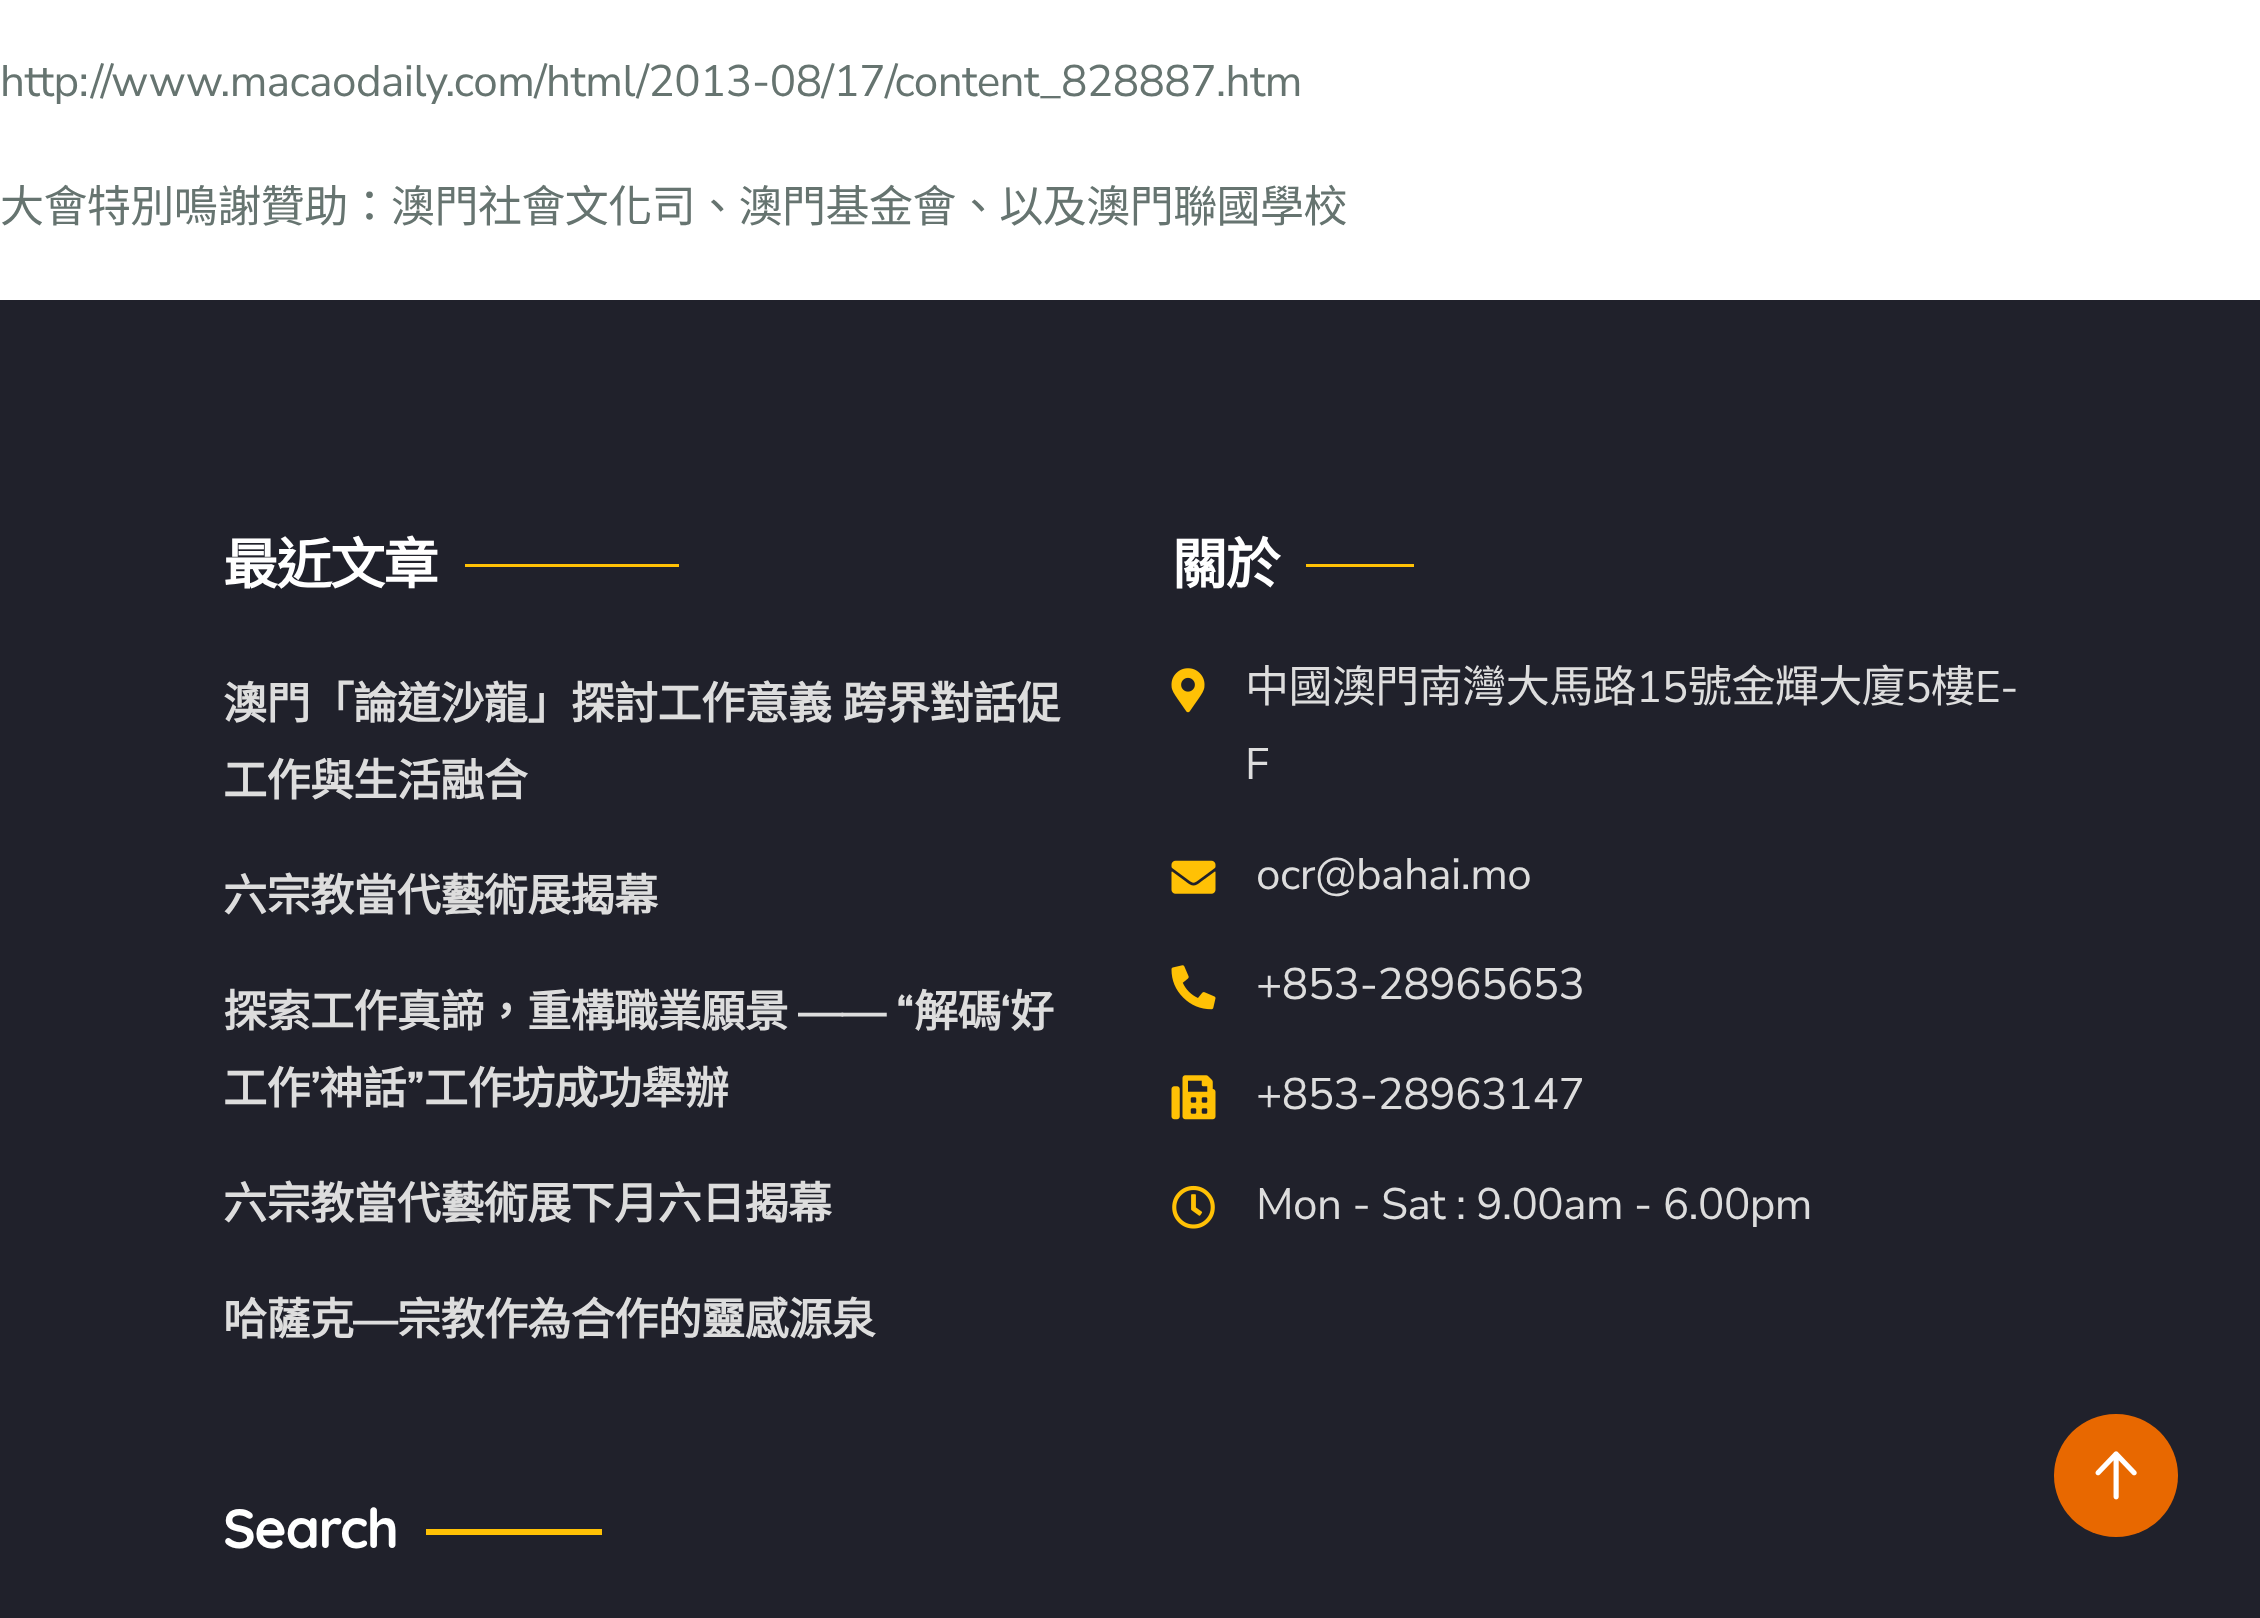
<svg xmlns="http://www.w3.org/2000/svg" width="2260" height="1618">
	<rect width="100%" height="100%" fill="#FFFFFF" />
	<text x="0" y="96" font-family="Nunito Sans" font-size="44" letter-spacing="-0.55" fill="#667470">http://www.macaodaily.com/html/2013-08/17/content_828887.htm</text>
	<text x="0" y="222" font-family="Noto Sans CJK TC" font-size="44" letter-spacing="-0.55" fill="#667470">大會特別鳴謝贊助：澳門社會文化司、澳門基金會、以及澳門聯國學校</text>
	<rect x="0" y="300" width="2260" height="1318" fill="#20212B" />
	<text x="223" y="584" font-family="Noto Sans CJK TC" font-size="55" font-weight="700" letter-spacing="-1.5" fill="#FFFFFF">最近文章</text>
	<rect x="465" y="564" width="214" height="3" fill="#FFC105" />
	<g font-family="Noto Sans CJK TC" font-size="44" font-weight="700" letter-spacing="-0.55" fill="#DDDDDD">
		<text x="223" y="719" word-spacing="2">澳門「論道沙龍」探討工作意義 跨界對話促</text>
		<text x="223" y="796">工作與生活融合</text>
		<text x="223" y="911">六宗教當代藝術展揭幕</text>
		<text x="223" y="1027">探索工作真諦，重構職業願景</text>
	</g>
	<text x="798" y="1027" font-family="Nunito Sans" font-size="44" font-weight="700" letter-spacing="-0.55" fill="#DDDDDD">—— “</text>
	<text x="914" y="1027" font-family="Noto Sans CJK TC" font-size="44" font-weight="700" letter-spacing="-0.55" fill="#DDDDDD">解碼</text>
	<text x="1000" y="1027" font-family="Nunito Sans" font-size="44" font-weight="700" letter-spacing="-0.55" fill="#DDDDDD">‘</text>
	<g font-family="Noto Sans CJK TC" font-size="44" font-weight="700" letter-spacing="-0.55" fill="#DDDDDD">
		<text x="1010" y="1027">好</text>
		<text x="223" y="1104">工作</text>
	</g>
	<text x="310" y="1104" font-family="Nunito Sans" font-size="44" font-weight="700" letter-spacing="-0.55" fill="#DDDDDD">’</text>
	<text x="319" y="1104" font-family="Noto Sans CJK TC" font-size="44" font-weight="700" letter-spacing="-0.55" fill="#DDDDDD">神話</text>
	<text x="406" y="1104" font-family="Nunito Sans" font-size="44" font-weight="700" letter-spacing="-0.55" fill="#DDDDDD">”</text>
	<g font-family="Noto Sans CJK TC" font-size="44" font-weight="700" letter-spacing="-0.55" fill="#DDDDDD">
		<text x="424" y="1104">工作坊成功舉辦</text>
		<text x="223" y="1219">六宗教當代藝術展下月六日揭幕</text>
		<text x="223" y="1335">哈薩克</text>
	</g>
	<text x="353" y="1335" font-family="Nunito Sans" font-size="44" font-weight="700" letter-spacing="-0.55" fill="#DDDDDD">—</text>
	<text x="397" y="1335" font-family="Noto Sans CJK TC" font-size="44" font-weight="700" letter-spacing="-0.55" fill="#DDDDDD">宗教作為合作的靈感源泉</text>
	<text x="1172" y="584" font-family="Noto Sans CJK TC" font-size="55" font-weight="700" letter-spacing="-1.5" fill="#FFFFFF">關於</text>
	<rect x="1306" y="564" width="108" height="3" fill="#FFC105" />
	<image x="1171" y="668" width="34" height="45" href="assets/img1.png" />
	<text x="1245" y="702" font-family="Noto Sans CJK TC" font-size="44" letter-spacing="-0.55" fill="#DDDDDD">中國澳門南灣大馬路</text>
	<text x="1636" y="702" font-family="Nunito Sans" font-size="44" letter-spacing="-0.55" fill="#DDDDDD">15</text>
	<text x="1688" y="702" font-family="Noto Sans CJK TC" font-size="44" letter-spacing="-0.55" fill="#DDDDDD">號金輝大廈</text>
	<text x="1905" y="702" font-family="Nunito Sans" font-size="44" letter-spacing="-0.55" fill="#DDDDDD">5</text>
	<text x="1931" y="702" font-family="Noto Sans CJK TC" font-size="44" letter-spacing="-0.55" fill="#DDDDDD">樓</text>
	<g font-family="Nunito Sans" font-size="44" letter-spacing="-0.55" fill="#DDDDDD">
		<text x="1975" y="702">E-</text>
		<text x="1245" y="779">F</text>
	</g>
	<image x="1171" y="860" width="45" height="34" href="assets/img2.png" />
	<text x="1256" y="889" font-family="Nunito Sans" font-size="44" letter-spacing="-0.55" fill="#DDDDDD">ocr@bahai.mo</text>
	<image x="1171" y="965" width="45" height="45" href="assets/img3.png" />
	<text x="1256" y="999" font-family="Nunito Sans" font-size="44" letter-spacing="-0.55" fill="#DDDDDD">+853-28965653</text>
	<image x="1171" y="1075" width="45" height="45" href="assets/img4.png" />
	<text x="1256" y="1109" font-family="Nunito Sans" font-size="44" letter-spacing="-0.55" fill="#DDDDDD">+853-28963147</text>
	<image x="1172" y="1185" width="43" height="44" href="assets/img5.png" />
	<text x="1256" y="1219" font-family="Nunito Sans" font-size="44" letter-spacing="-0.55" fill="#DDDDDD">Mon - Sat : 9.00am - 6.00pm</text>
	<text x="223" y="1548" font-family="Quicksand" font-size="55" font-weight="700" letter-spacing="-1.5" fill="#FFFFFF">Search</text>
	<rect x="426" y="1529" width="176" height="6" fill="#FFC105" />
	<rect x="2054" y="1414" width="124" height="123" rx="61.5" fill="#E86800" />
	<image x="2095" y="1451" width="42" height="49" href="assets/img6.png" />
</svg>
